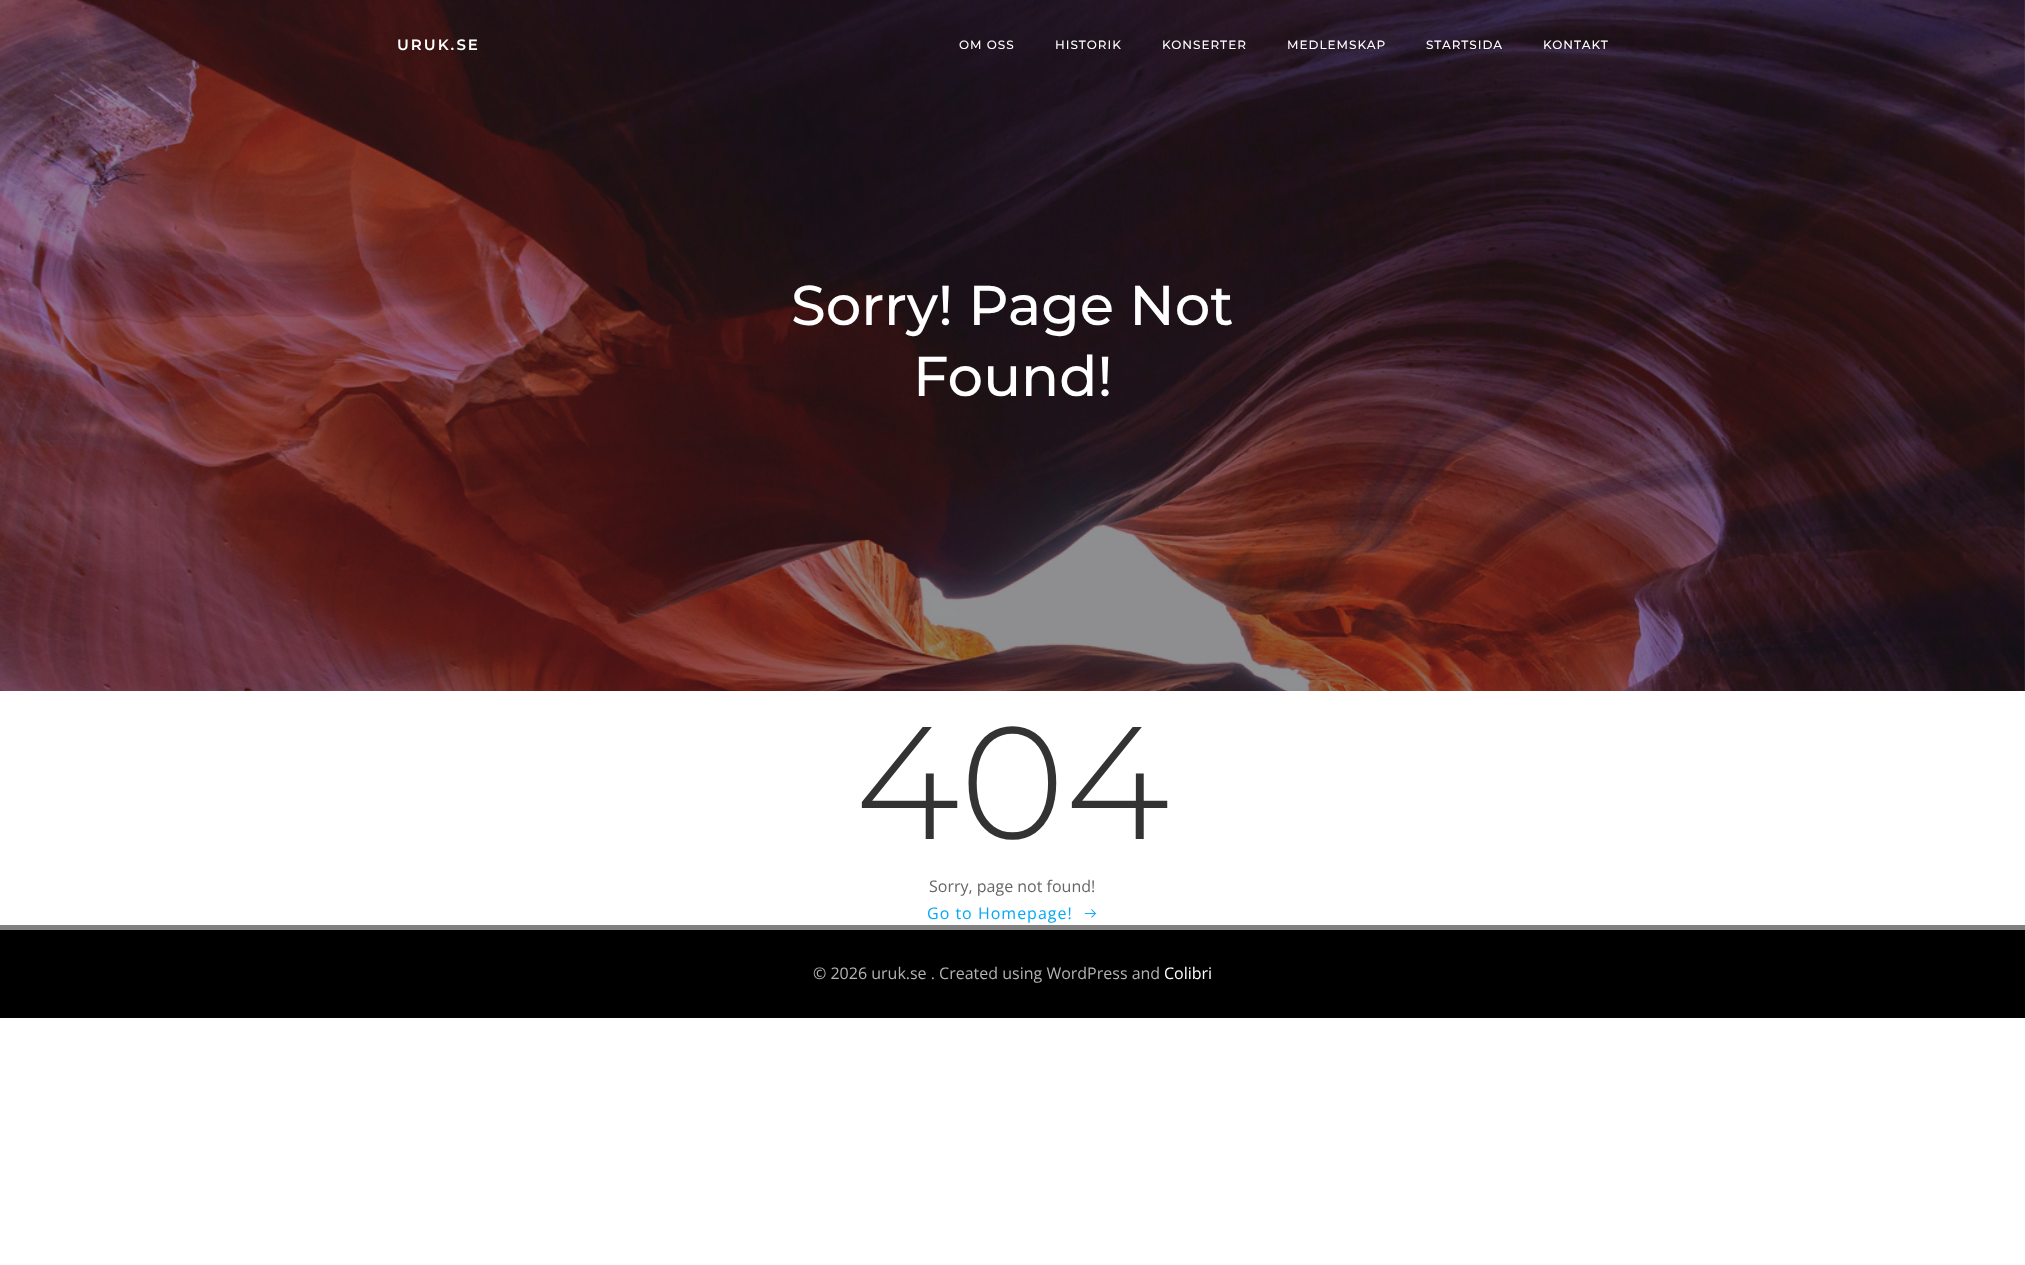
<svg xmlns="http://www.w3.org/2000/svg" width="2025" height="1265">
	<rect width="100%" height="100%" fill="#FFFFFF" />
	<image x="0" y="0" width="2025" height="691" href="assets/img1.png" />
	<text x="397" y="50" font-family="Montserrat" font-size="15" font-weight="600" letter-spacing="2" fill="#FFFFFF">URUK.SE</text>
	<g font-family="Montserrat" font-size="12" font-weight="500" letter-spacing="1" fill="#FFFFFF">
		<text x="959" y="49">OM OSS</text>
		<text x="1055" y="49">HISTORIK</text>
		<text x="1162" y="49">KONSERTER</text>
		<text x="1287" y="49">MEDLEMSKAP</text>
		<text x="1426" y="49">STARTSIDA</text>
		<text x="1543" y="49">KONTAKT</text>
	</g>
	<g font-family="Montserrat" font-size="56" font-weight="500" fill="#FFFFFF">
		<text x="791" y="325">Sorry! Page Not</text>
		<text x="913" y="396">Found!</text>
	</g>
	<text x="855" y="839" font-family="Montserrat" font-size="160" font-weight="300" fill="#333333">404</text>
	<text x="929" y="892" font-family="Open Sans" font-size="16" fill="#666666">Sorry, page not found!</text>
	<text x="927" y="919" font-family="Open Sans" font-size="16" letter-spacing="1" fill="#03A9F4">Go to Homepage!</text>
	<image x="1084" y="909" width="12" height="9" href="assets/img2.png" />
	<rect x="0" y="930" width="2025" height="88" fill="#000000" />
	<rect x="0" y="925" width="2025" height="5" fill="#808080" />
	<text x="813" y="979" font-family="Open Sans" font-size="16" fill="#B3B3B3">© 2026 uruk.se . Created using WordPress and</text>
	<text x="1164" y="979" font-family="Open Sans" font-size="16" fill="#FFFFFF">Colibri</text>
</svg>
